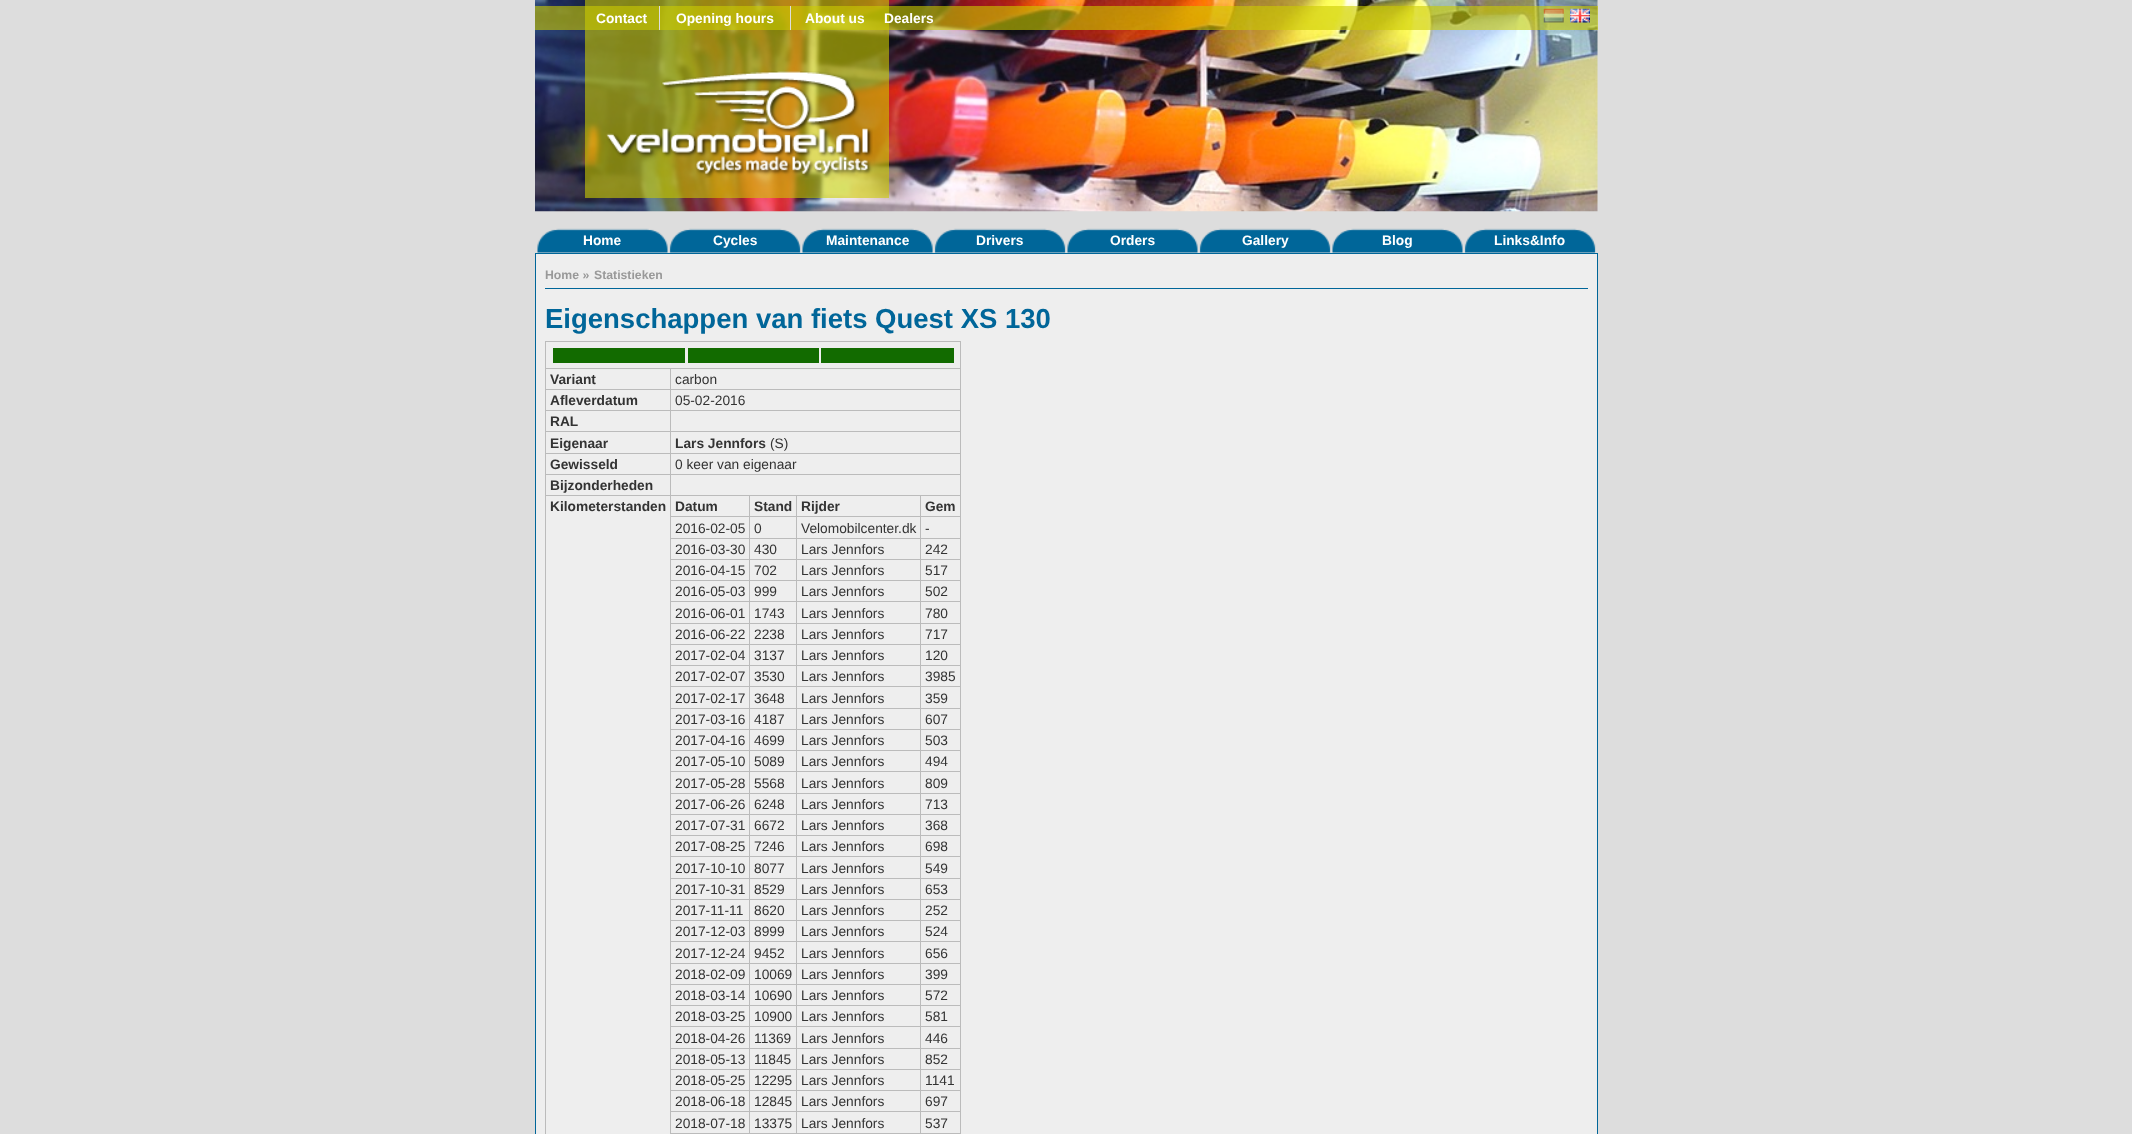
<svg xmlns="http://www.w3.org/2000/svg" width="2132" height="1134">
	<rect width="100%" height="100%" fill="#DDDDDD" />
	<image x="535" y="0" width="1063" height="212" href="assets/img1.png" />
	<rect x="535" y="6" width="1063" height="24" fill="#CCCC00" fill-opacity="0.6" />
	<rect x="585" y="0" width="304" height="198" fill="#CCCC00" fill-opacity="0.6" />
	<image x="606" y="71" width="267" height="107" href="assets/img2.png" />
	<rect x="659" y="6" width="1" height="24" fill="#DDDDDD" />
	<text x="596" y="23" font-family="Liberation Sans" font-size="13.75" font-weight="700" fill="#FFFFFF">Contact</text>
	<rect x="790" y="6" width="1" height="24" fill="#DDDDDD" />
	<g font-family="Liberation Sans" font-size="13.75" font-weight="700" fill="#FFFFFF">
		<text x="676" y="23">Opening hours</text>
		<text x="805" y="23">About us</text>
		<text x="884" y="23">Dealers</text>
	</g>
	<image x="1543" y="8" width="21" height="15" href="assets/img3.png" />
	<image x="1570" y="8" width="20" height="15" href="assets/img4.png" />
	<image x="537" y="228" width="131" height="25" href="assets/img5.png" />
	<text x="583" y="245" font-family="Liberation Sans" font-size="13.75" font-weight="700" fill="#FFFFFF">Home</text>
	<image x="669" y="228" width="132" height="25" href="assets/img6.png" />
	<text x="713" y="245" font-family="Liberation Sans" font-size="13.75" font-weight="700" fill="#FFFFFF">Cycles</text>
	<image x="802" y="228" width="131" height="25" href="assets/img7.png" />
	<text x="826" y="245" font-family="Liberation Sans" font-size="13.75" font-weight="700" fill="#FFFFFF">Maintenance</text>
	<image x="934" y="228" width="132" height="25" href="assets/img6.png" />
	<text x="976" y="245" font-family="Liberation Sans" font-size="13.75" font-weight="700" fill="#FFFFFF">Drivers</text>
	<image x="1067" y="228" width="131" height="25" href="assets/img5.png" />
	<text x="1110" y="245" font-family="Liberation Sans" font-size="13.75" font-weight="700" fill="#FFFFFF">Orders</text>
	<image x="1199" y="228" width="132" height="25" href="assets/img8.png" />
	<text x="1242" y="245" font-family="Liberation Sans" font-size="13.75" font-weight="700" fill="#FFFFFF">Gallery</text>
	<image x="1332" y="228" width="131" height="25" href="assets/img5.png" />
	<text x="1382" y="245" font-family="Liberation Sans" font-size="13.75" font-weight="700" fill="#FFFFFF">Blog</text>
	<image x="1464" y="228" width="132" height="25" href="assets/img8.png" />
	<text x="1494" y="245" font-family="Liberation Sans" font-size="13.75" font-weight="700" fill="#FFFFFF">Links&amp;Info</text>
	<rect x="535.5" y="253.5" width="1062" height="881" fill="#EEEEEE" stroke="#006699" />
	<rect x="545" y="288" width="1043" height="1" fill="#006699" />
	<g font-family="Liberation Sans" font-size="12.25" font-weight="700" fill="#999999">
		<text x="545" y="279">Home »</text>
		<text x="594" y="279">Statistieken</text>
	</g>
	<text x="545" y="328" font-family="Liberation Sans" font-size="27.5" font-weight="700" fill="#006699">Eigenschappen van fiets Quest XS 130</text>
	<rect x="545" y="341" width="416" height="1" fill="#BBBBBB" />
	<rect x="960" y="341" width="1" height="793" fill="#BBBBBB" />
	<rect x="545" y="341" width="1" height="793" fill="#BBBBBB" />
	<rect x="553" y="348" width="132" height="15" fill="#126B00" />
	<rect x="688" y="348" width="131" height="15" fill="#126B00" />
	<rect x="821" y="348" width="133" height="15" fill="#126B00" />
	<rect x="670" y="368" width="291" height="1" fill="#BBBBBB" />
	<rect x="670" y="389" width="291" height="1" fill="#BBBBBB" />
	<rect x="670" y="410" width="291" height="1" fill="#BBBBBB" />
	<rect x="670" y="431" width="291" height="1" fill="#BBBBBB" />
	<rect x="670" y="453" width="291" height="1" fill="#BBBBBB" />
	<rect x="670" y="474" width="291" height="1" fill="#BBBBBB" />
	<rect x="920" y="495" width="41" height="1" fill="#BBBBBB" />
	<rect x="920" y="516" width="41" height="1" fill="#BBBBBB" />
	<rect x="920" y="538" width="41" height="1" fill="#BBBBBB" />
	<rect x="920" y="559" width="41" height="1" fill="#BBBBBB" />
	<rect x="920" y="580" width="41" height="1" fill="#BBBBBB" />
	<rect x="920" y="601" width="41" height="1" fill="#BBBBBB" />
	<rect x="920" y="623" width="41" height="1" fill="#BBBBBB" />
	<rect x="920" y="644" width="41" height="1" fill="#BBBBBB" />
	<rect x="920" y="665" width="41" height="1" fill="#BBBBBB" />
	<rect x="920" y="686" width="41" height="1" fill="#BBBBBB" />
	<rect x="920" y="708" width="41" height="1" fill="#BBBBBB" />
	<rect x="920" y="729" width="41" height="1" fill="#BBBBBB" />
	<rect x="920" y="750" width="41" height="1" fill="#BBBBBB" />
	<rect x="920" y="771" width="41" height="1" fill="#BBBBBB" />
	<rect x="920" y="793" width="41" height="1" fill="#BBBBBB" />
	<rect x="920" y="814" width="41" height="1" fill="#BBBBBB" />
	<rect x="920" y="835" width="41" height="1" fill="#BBBBBB" />
	<rect x="920" y="856" width="41" height="1" fill="#BBBBBB" />
	<rect x="920" y="878" width="41" height="1" fill="#BBBBBB" />
	<rect x="920" y="899" width="41" height="1" fill="#BBBBBB" />
	<rect x="920" y="920" width="41" height="1" fill="#BBBBBB" />
	<rect x="920" y="941" width="41" height="1" fill="#BBBBBB" />
	<rect x="920" y="963" width="41" height="1" fill="#BBBBBB" />
	<rect x="920" y="984" width="41" height="1" fill="#BBBBBB" />
	<rect x="920" y="1005" width="41" height="1" fill="#BBBBBB" />
	<rect x="920" y="1026" width="41" height="1" fill="#BBBBBB" />
	<rect x="920" y="1048" width="41" height="1" fill="#BBBBBB" />
	<rect x="920" y="1069" width="41" height="1" fill="#BBBBBB" />
	<rect x="920" y="1090" width="41" height="1" fill="#BBBBBB" />
	<rect x="920" y="1111" width="41" height="1" fill="#BBBBBB" />
	<rect x="670" y="1133" width="291" height="1" fill="#BBBBBB" />
	<rect x="920" y="1111" width="1" height="23" fill="#BBBBBB" />
	<rect x="796" y="1111" width="125" height="1" fill="#BBBBBB" />
	<rect x="920" y="1090" width="1" height="23" fill="#BBBBBB" />
	<rect x="796" y="1090" width="125" height="1" fill="#BBBBBB" />
	<rect x="920" y="1069" width="1" height="22" fill="#BBBBBB" />
	<rect x="796" y="1069" width="125" height="1" fill="#BBBBBB" />
	<rect x="920" y="1048" width="1" height="22" fill="#BBBBBB" />
	<rect x="796" y="1048" width="125" height="1" fill="#BBBBBB" />
	<rect x="920" y="1026" width="1" height="23" fill="#BBBBBB" />
	<rect x="796" y="1026" width="125" height="1" fill="#BBBBBB" />
	<rect x="920" y="1005" width="1" height="23" fill="#BBBBBB" />
	<rect x="796" y="1005" width="125" height="1" fill="#BBBBBB" />
	<rect x="920" y="984" width="1" height="22" fill="#BBBBBB" />
	<rect x="796" y="984" width="125" height="1" fill="#BBBBBB" />
	<rect x="920" y="963" width="1" height="22" fill="#BBBBBB" />
	<rect x="796" y="963" width="125" height="1" fill="#BBBBBB" />
	<rect x="920" y="941" width="1" height="23" fill="#BBBBBB" />
	<rect x="796" y="941" width="125" height="1" fill="#BBBBBB" />
	<rect x="920" y="920" width="1" height="23" fill="#BBBBBB" />
	<rect x="796" y="920" width="125" height="1" fill="#BBBBBB" />
	<rect x="920" y="899" width="1" height="22" fill="#BBBBBB" />
	<rect x="796" y="899" width="125" height="1" fill="#BBBBBB" />
	<rect x="920" y="878" width="1" height="22" fill="#BBBBBB" />
	<rect x="796" y="878" width="125" height="1" fill="#BBBBBB" />
	<rect x="920" y="856" width="1" height="23" fill="#BBBBBB" />
	<rect x="796" y="856" width="125" height="1" fill="#BBBBBB" />
	<rect x="920" y="835" width="1" height="23" fill="#BBBBBB" />
	<rect x="796" y="835" width="125" height="1" fill="#BBBBBB" />
	<rect x="920" y="814" width="1" height="22" fill="#BBBBBB" />
	<rect x="796" y="814" width="125" height="1" fill="#BBBBBB" />
	<rect x="920" y="793" width="1" height="22" fill="#BBBBBB" />
	<rect x="796" y="793" width="125" height="1" fill="#BBBBBB" />
	<rect x="920" y="771" width="1" height="23" fill="#BBBBBB" />
	<rect x="796" y="771" width="125" height="1" fill="#BBBBBB" />
	<rect x="920" y="750" width="1" height="23" fill="#BBBBBB" />
	<rect x="796" y="750" width="125" height="1" fill="#BBBBBB" />
	<rect x="920" y="729" width="1" height="22" fill="#BBBBBB" />
	<rect x="796" y="729" width="125" height="1" fill="#BBBBBB" />
	<rect x="920" y="708" width="1" height="22" fill="#BBBBBB" />
	<rect x="796" y="708" width="125" height="1" fill="#BBBBBB" />
	<rect x="920" y="686" width="1" height="23" fill="#BBBBBB" />
	<rect x="796" y="686" width="125" height="1" fill="#BBBBBB" />
	<rect x="920" y="665" width="1" height="23" fill="#BBBBBB" />
	<rect x="796" y="665" width="125" height="1" fill="#BBBBBB" />
	<rect x="920" y="644" width="1" height="22" fill="#BBBBBB" />
	<rect x="796" y="644" width="125" height="1" fill="#BBBBBB" />
	<rect x="920" y="623" width="1" height="22" fill="#BBBBBB" />
	<rect x="796" y="623" width="125" height="1" fill="#BBBBBB" />
	<rect x="920" y="601" width="1" height="23" fill="#BBBBBB" />
	<rect x="796" y="601" width="125" height="1" fill="#BBBBBB" />
	<rect x="920" y="580" width="1" height="23" fill="#BBBBBB" />
	<rect x="796" y="580" width="125" height="1" fill="#BBBBBB" />
	<rect x="920" y="559" width="1" height="22" fill="#BBBBBB" />
	<rect x="796" y="559" width="125" height="1" fill="#BBBBBB" />
	<rect x="920" y="538" width="1" height="22" fill="#BBBBBB" />
	<rect x="796" y="538" width="125" height="1" fill="#BBBBBB" />
	<rect x="920" y="516" width="1" height="23" fill="#BBBBBB" />
	<rect x="796" y="516" width="125" height="1" fill="#BBBBBB" />
	<rect x="920" y="495" width="1" height="23" fill="#BBBBBB" />
	<rect x="796" y="495" width="125" height="1" fill="#BBBBBB" />
	<rect x="796" y="1111" width="1" height="23" fill="#BBBBBB" />
	<rect x="749" y="1111" width="49" height="1" fill="#BBBBBB" />
	<rect x="796" y="1090" width="1" height="23" fill="#BBBBBB" />
	<rect x="749" y="1090" width="49" height="1" fill="#BBBBBB" />
	<rect x="796" y="1069" width="1" height="22" fill="#BBBBBB" />
	<rect x="749" y="1069" width="49" height="1" fill="#BBBBBB" />
	<rect x="796" y="1048" width="1" height="22" fill="#BBBBBB" />
	<rect x="749" y="1048" width="49" height="1" fill="#BBBBBB" />
	<rect x="796" y="1026" width="1" height="23" fill="#BBBBBB" />
	<rect x="749" y="1026" width="49" height="1" fill="#BBBBBB" />
	<rect x="796" y="1005" width="1" height="23" fill="#BBBBBB" />
	<rect x="749" y="1005" width="49" height="1" fill="#BBBBBB" />
	<rect x="796" y="984" width="1" height="22" fill="#BBBBBB" />
	<rect x="749" y="984" width="49" height="1" fill="#BBBBBB" />
	<rect x="796" y="963" width="1" height="22" fill="#BBBBBB" />
	<rect x="749" y="963" width="49" height="1" fill="#BBBBBB" />
	<rect x="796" y="941" width="1" height="23" fill="#BBBBBB" />
	<rect x="749" y="941" width="49" height="1" fill="#BBBBBB" />
	<rect x="796" y="920" width="1" height="23" fill="#BBBBBB" />
	<rect x="749" y="920" width="49" height="1" fill="#BBBBBB" />
	<rect x="796" y="899" width="1" height="22" fill="#BBBBBB" />
	<rect x="749" y="899" width="49" height="1" fill="#BBBBBB" />
	<rect x="796" y="878" width="1" height="22" fill="#BBBBBB" />
	<rect x="749" y="878" width="49" height="1" fill="#BBBBBB" />
	<rect x="796" y="856" width="1" height="23" fill="#BBBBBB" />
	<rect x="749" y="856" width="49" height="1" fill="#BBBBBB" />
	<rect x="796" y="835" width="1" height="23" fill="#BBBBBB" />
	<rect x="749" y="835" width="49" height="1" fill="#BBBBBB" />
	<rect x="796" y="814" width="1" height="22" fill="#BBBBBB" />
	<rect x="749" y="814" width="49" height="1" fill="#BBBBBB" />
	<rect x="796" y="793" width="1" height="22" fill="#BBBBBB" />
	<rect x="749" y="793" width="49" height="1" fill="#BBBBBB" />
	<rect x="796" y="771" width="1" height="23" fill="#BBBBBB" />
	<rect x="749" y="771" width="49" height="1" fill="#BBBBBB" />
	<rect x="796" y="750" width="1" height="23" fill="#BBBBBB" />
	<rect x="749" y="750" width="49" height="1" fill="#BBBBBB" />
	<rect x="796" y="729" width="1" height="22" fill="#BBBBBB" />
	<rect x="749" y="729" width="49" height="1" fill="#BBBBBB" />
	<rect x="796" y="708" width="1" height="22" fill="#BBBBBB" />
	<rect x="749" y="708" width="49" height="1" fill="#BBBBBB" />
	<rect x="796" y="686" width="1" height="23" fill="#BBBBBB" />
	<rect x="749" y="686" width="49" height="1" fill="#BBBBBB" />
	<rect x="796" y="665" width="1" height="23" fill="#BBBBBB" />
	<rect x="749" y="665" width="49" height="1" fill="#BBBBBB" />
	<rect x="796" y="644" width="1" height="22" fill="#BBBBBB" />
	<rect x="749" y="644" width="49" height="1" fill="#BBBBBB" />
	<rect x="796" y="623" width="1" height="22" fill="#BBBBBB" />
	<rect x="749" y="623" width="49" height="1" fill="#BBBBBB" />
	<rect x="796" y="601" width="1" height="23" fill="#BBBBBB" />
	<rect x="749" y="601" width="49" height="1" fill="#BBBBBB" />
	<rect x="796" y="580" width="1" height="23" fill="#BBBBBB" />
	<rect x="749" y="580" width="49" height="1" fill="#BBBBBB" />
	<rect x="796" y="559" width="1" height="22" fill="#BBBBBB" />
	<rect x="749" y="559" width="49" height="1" fill="#BBBBBB" />
	<rect x="796" y="538" width="1" height="22" fill="#BBBBBB" />
	<rect x="749" y="538" width="49" height="1" fill="#BBBBBB" />
	<rect x="796" y="516" width="1" height="23" fill="#BBBBBB" />
	<rect x="749" y="516" width="49" height="1" fill="#BBBBBB" />
	<rect x="796" y="495" width="1" height="23" fill="#BBBBBB" />
	<rect x="749" y="495" width="49" height="1" fill="#BBBBBB" />
	<rect x="749" y="1111" width="1" height="23" fill="#BBBBBB" />
	<rect x="670" y="1111" width="80" height="1" fill="#BBBBBB" />
	<rect x="749" y="1090" width="1" height="23" fill="#BBBBBB" />
	<rect x="670" y="1090" width="80" height="1" fill="#BBBBBB" />
	<rect x="749" y="1069" width="1" height="22" fill="#BBBBBB" />
	<rect x="670" y="1069" width="80" height="1" fill="#BBBBBB" />
	<rect x="749" y="1048" width="1" height="22" fill="#BBBBBB" />
	<rect x="670" y="1048" width="80" height="1" fill="#BBBBBB" />
	<rect x="749" y="1026" width="1" height="23" fill="#BBBBBB" />
	<rect x="670" y="1026" width="80" height="1" fill="#BBBBBB" />
	<rect x="749" y="1005" width="1" height="23" fill="#BBBBBB" />
	<rect x="670" y="1005" width="80" height="1" fill="#BBBBBB" />
	<rect x="749" y="984" width="1" height="22" fill="#BBBBBB" />
	<rect x="670" y="984" width="80" height="1" fill="#BBBBBB" />
	<rect x="749" y="963" width="1" height="22" fill="#BBBBBB" />
	<rect x="670" y="963" width="80" height="1" fill="#BBBBBB" />
	<rect x="749" y="941" width="1" height="23" fill="#BBBBBB" />
	<rect x="670" y="941" width="80" height="1" fill="#BBBBBB" />
	<rect x="749" y="920" width="1" height="23" fill="#BBBBBB" />
	<rect x="670" y="920" width="80" height="1" fill="#BBBBBB" />
	<rect x="749" y="899" width="1" height="22" fill="#BBBBBB" />
	<rect x="670" y="899" width="80" height="1" fill="#BBBBBB" />
	<rect x="749" y="878" width="1" height="22" fill="#BBBBBB" />
	<rect x="670" y="878" width="80" height="1" fill="#BBBBBB" />
	<rect x="749" y="856" width="1" height="23" fill="#BBBBBB" />
	<rect x="670" y="856" width="80" height="1" fill="#BBBBBB" />
	<rect x="749" y="835" width="1" height="23" fill="#BBBBBB" />
	<rect x="670" y="835" width="80" height="1" fill="#BBBBBB" />
	<rect x="749" y="814" width="1" height="22" fill="#BBBBBB" />
	<rect x="670" y="814" width="80" height="1" fill="#BBBBBB" />
	<rect x="749" y="793" width="1" height="22" fill="#BBBBBB" />
	<rect x="670" y="793" width="80" height="1" fill="#BBBBBB" />
	<rect x="749" y="771" width="1" height="23" fill="#BBBBBB" />
	<rect x="670" y="771" width="80" height="1" fill="#BBBBBB" />
	<rect x="749" y="750" width="1" height="23" fill="#BBBBBB" />
	<rect x="670" y="750" width="80" height="1" fill="#BBBBBB" />
	<rect x="749" y="729" width="1" height="22" fill="#BBBBBB" />
	<rect x="670" y="729" width="80" height="1" fill="#BBBBBB" />
	<rect x="749" y="708" width="1" height="22" fill="#BBBBBB" />
	<rect x="670" y="708" width="80" height="1" fill="#BBBBBB" />
	<rect x="749" y="686" width="1" height="23" fill="#BBBBBB" />
	<rect x="670" y="686" width="80" height="1" fill="#BBBBBB" />
	<rect x="749" y="665" width="1" height="23" fill="#BBBBBB" />
	<rect x="670" y="665" width="80" height="1" fill="#BBBBBB" />
	<rect x="749" y="644" width="1" height="22" fill="#BBBBBB" />
	<rect x="670" y="644" width="80" height="1" fill="#BBBBBB" />
	<rect x="749" y="623" width="1" height="22" fill="#BBBBBB" />
	<rect x="670" y="623" width="80" height="1" fill="#BBBBBB" />
	<rect x="749" y="601" width="1" height="23" fill="#BBBBBB" />
	<rect x="670" y="601" width="80" height="1" fill="#BBBBBB" />
	<rect x="749" y="580" width="1" height="23" fill="#BBBBBB" />
	<rect x="670" y="580" width="80" height="1" fill="#BBBBBB" />
	<rect x="749" y="559" width="1" height="22" fill="#BBBBBB" />
	<rect x="670" y="559" width="80" height="1" fill="#BBBBBB" />
	<rect x="749" y="538" width="1" height="22" fill="#BBBBBB" />
	<rect x="670" y="538" width="80" height="1" fill="#BBBBBB" />
	<rect x="749" y="516" width="1" height="23" fill="#BBBBBB" />
	<rect x="670" y="516" width="80" height="1" fill="#BBBBBB" />
	<rect x="749" y="495" width="1" height="23" fill="#BBBBBB" />
	<rect x="670" y="495" width="80" height="1" fill="#BBBBBB" />
	<rect x="670" y="1111" width="1" height="23" fill="#BBBBBB" />
	<rect x="670" y="1090" width="1" height="23" fill="#BBBBBB" />
	<rect x="670" y="1069" width="1" height="22" fill="#BBBBBB" />
	<rect x="670" y="1048" width="1" height="22" fill="#BBBBBB" />
	<rect x="670" y="1026" width="1" height="23" fill="#BBBBBB" />
	<rect x="670" y="1005" width="1" height="23" fill="#BBBBBB" />
	<rect x="670" y="984" width="1" height="22" fill="#BBBBBB" />
	<rect x="670" y="963" width="1" height="22" fill="#BBBBBB" />
	<rect x="670" y="941" width="1" height="23" fill="#BBBBBB" />
	<rect x="670" y="920" width="1" height="23" fill="#BBBBBB" />
	<rect x="670" y="899" width="1" height="22" fill="#BBBBBB" />
	<rect x="670" y="878" width="1" height="22" fill="#BBBBBB" />
	<rect x="670" y="856" width="1" height="23" fill="#BBBBBB" />
	<rect x="670" y="835" width="1" height="23" fill="#BBBBBB" />
	<rect x="670" y="814" width="1" height="22" fill="#BBBBBB" />
	<rect x="670" y="793" width="1" height="22" fill="#BBBBBB" />
	<rect x="670" y="771" width="1" height="23" fill="#BBBBBB" />
	<rect x="670" y="750" width="1" height="23" fill="#BBBBBB" />
	<rect x="670" y="729" width="1" height="22" fill="#BBBBBB" />
	<rect x="670" y="708" width="1" height="22" fill="#BBBBBB" />
	<rect x="670" y="686" width="1" height="23" fill="#BBBBBB" />
	<rect x="670" y="665" width="1" height="23" fill="#BBBBBB" />
	<rect x="670" y="644" width="1" height="22" fill="#BBBBBB" />
	<rect x="670" y="623" width="1" height="22" fill="#BBBBBB" />
	<rect x="670" y="601" width="1" height="23" fill="#BBBBBB" />
	<rect x="670" y="580" width="1" height="23" fill="#BBBBBB" />
	<rect x="670" y="559" width="1" height="22" fill="#BBBBBB" />
	<rect x="670" y="538" width="1" height="22" fill="#BBBBBB" />
	<rect x="670" y="516" width="1" height="23" fill="#BBBBBB" />
	<rect x="670" y="495" width="1" height="23" fill="#BBBBBB" />
	<rect x="545" y="495" width="126" height="1" fill="#BBBBBB" />
	<rect x="670" y="474" width="1" height="22" fill="#BBBBBB" />
	<rect x="545" y="474" width="126" height="1" fill="#BBBBBB" />
	<rect x="670" y="453" width="1" height="22" fill="#BBBBBB" />
	<rect x="545" y="453" width="126" height="1" fill="#BBBBBB" />
	<rect x="670" y="431" width="1" height="23" fill="#BBBBBB" />
	<rect x="545" y="431" width="126" height="1" fill="#BBBBBB" />
	<rect x="670" y="410" width="1" height="23" fill="#BBBBBB" />
	<rect x="545" y="410" width="126" height="1" fill="#BBBBBB" />
	<rect x="670" y="389" width="1" height="22" fill="#BBBBBB" />
	<rect x="545" y="389" width="126" height="1" fill="#BBBBBB" />
	<rect x="670" y="368" width="1" height="22" fill="#BBBBBB" />
	<rect x="545" y="368" width="126" height="1" fill="#BBBBBB" />
	<text x="550" y="384" font-family="Liberation Sans" font-size="13.75" font-weight="700" fill="#333333">Variant</text>
	<text x="675" y="384" font-family="Liberation Sans" font-size="13.75" fill="#333333">carbon</text>
	<text x="550" y="405" font-family="Liberation Sans" font-size="13.75" font-weight="700" fill="#333333">Afleverdatum</text>
	<text x="675" y="405" font-family="Liberation Sans" font-size="13.75" fill="#333333">05-02-2016</text>
	<g font-family="Liberation Sans" font-size="13.75" font-weight="700" fill="#333333">
		<text x="550" y="426">RAL</text>
		<text x="550" y="448">Eigenaar</text>
		<text x="675" y="448">Lars Jennfors</text>
	</g>
	<text x="770" y="448" font-family="Liberation Sans" font-size="13.75" fill="#333333">(S)</text>
	<text x="550" y="469" font-family="Liberation Sans" font-size="13.75" font-weight="700" fill="#333333">Gewisseld</text>
	<text x="675" y="469" font-family="Liberation Sans" font-size="13.75" fill="#333333">0 keer van eigenaar</text>
	<g font-family="Liberation Sans" font-size="13.75" font-weight="700" fill="#333333">
		<text x="550" y="490">Bijzonderheden</text>
		<text x="550" y="511">Kilometerstanden</text>
		<text x="675" y="511">Datum</text>
		<text x="754" y="511">Stand</text>
		<text x="801" y="511">Rijder</text>
		<text x="925" y="511">Gem</text>
	</g>
	<g font-family="Liberation Sans" font-size="13.75" fill="#333333">
		<text x="675" y="533">2016-02-05</text>
		<text x="754" y="533">0</text>
		<text x="801" y="533">Velomobilcenter.dk</text>
		<text x="925" y="533">-</text>
		<text x="675" y="554">2016-03-30</text>
		<text x="754" y="554">430</text>
		<text x="801" y="554">Lars Jennfors</text>
		<text x="925" y="554">242</text>
		<text x="675" y="575">2016-04-15</text>
		<text x="754" y="575">702</text>
		<text x="801" y="575">Lars Jennfors</text>
		<text x="925" y="575">517</text>
		<text x="675" y="596">2016-05-03</text>
		<text x="754" y="596">999</text>
		<text x="801" y="596">Lars Jennfors</text>
		<text x="925" y="596">502</text>
		<text x="675" y="618">2016-06-01</text>
		<text x="754" y="618">1743</text>
		<text x="801" y="618">Lars Jennfors</text>
		<text x="925" y="618">780</text>
		<text x="675" y="639">2016-06-22</text>
		<text x="754" y="639">2238</text>
		<text x="801" y="639">Lars Jennfors</text>
		<text x="925" y="639">717</text>
		<text x="675" y="660">2017-02-04</text>
		<text x="754" y="660">3137</text>
		<text x="801" y="660">Lars Jennfors</text>
		<text x="925" y="660">120</text>
		<text x="675" y="681">2017-02-07</text>
		<text x="754" y="681">3530</text>
		<text x="801" y="681">Lars Jennfors</text>
		<text x="925" y="681">3985</text>
		<text x="675" y="703">2017-02-17</text>
		<text x="754" y="703">3648</text>
		<text x="801" y="703">Lars Jennfors</text>
		<text x="925" y="703">359</text>
		<text x="675" y="724">2017-03-16</text>
		<text x="754" y="724">4187</text>
		<text x="801" y="724">Lars Jennfors</text>
		<text x="925" y="724">607</text>
		<text x="675" y="745">2017-04-16</text>
		<text x="754" y="745">4699</text>
		<text x="801" y="745">Lars Jennfors</text>
		<text x="925" y="745">503</text>
		<text x="675" y="766">2017-05-10</text>
		<text x="754" y="766">5089</text>
		<text x="801" y="766">Lars Jennfors</text>
		<text x="925" y="766">494</text>
		<text x="675" y="788">2017-05-28</text>
		<text x="754" y="788">5568</text>
		<text x="801" y="788">Lars Jennfors</text>
		<text x="925" y="788">809</text>
		<text x="675" y="809">2017-06-26</text>
		<text x="754" y="809">6248</text>
		<text x="801" y="809">Lars Jennfors</text>
		<text x="925" y="809">713</text>
		<text x="675" y="830">2017-07-31</text>
		<text x="754" y="830">6672</text>
		<text x="801" y="830">Lars Jennfors</text>
		<text x="925" y="830">368</text>
		<text x="675" y="851">2017-08-25</text>
		<text x="754" y="851">7246</text>
		<text x="801" y="851">Lars Jennfors</text>
		<text x="925" y="851">698</text>
		<text x="675" y="873">2017-10-10</text>
		<text x="754" y="873">8077</text>
		<text x="801" y="873">Lars Jennfors</text>
		<text x="925" y="873">549</text>
		<text x="675" y="894">2017-10-31</text>
		<text x="754" y="894">8529</text>
		<text x="801" y="894">Lars Jennfors</text>
		<text x="925" y="894">653</text>
		<text x="675" y="915">2017-11-11</text>
		<text x="754" y="915">8620</text>
		<text x="801" y="915">Lars Jennfors</text>
		<text x="925" y="915">252</text>
		<text x="675" y="936">2017-12-03</text>
		<text x="754" y="936">8999</text>
		<text x="801" y="936">Lars Jennfors</text>
		<text x="925" y="936">524</text>
		<text x="675" y="958">2017-12-24</text>
		<text x="754" y="958">9452</text>
		<text x="801" y="958">Lars Jennfors</text>
		<text x="925" y="958">656</text>
		<text x="675" y="979">2018-02-09</text>
		<text x="754" y="979">10069</text>
		<text x="801" y="979">Lars Jennfors</text>
		<text x="925" y="979">399</text>
		<text x="675" y="1000">2018-03-14</text>
		<text x="754" y="1000">10690</text>
		<text x="801" y="1000">Lars Jennfors</text>
		<text x="925" y="1000">572</text>
		<text x="675" y="1021">2018-03-25</text>
		<text x="754" y="1021">10900</text>
		<text x="801" y="1021">Lars Jennfors</text>
		<text x="925" y="1021">581</text>
		<text x="675" y="1043">2018-04-26</text>
		<text x="754" y="1043">11369</text>
		<text x="801" y="1043">Lars Jennfors</text>
		<text x="925" y="1043">446</text>
		<text x="675" y="1064">2018-05-13</text>
		<text x="754" y="1064">11845</text>
		<text x="801" y="1064">Lars Jennfors</text>
		<text x="925" y="1064">852</text>
		<text x="675" y="1085">2018-05-25</text>
		<text x="754" y="1085">12295</text>
		<text x="801" y="1085">Lars Jennfors</text>
		<text x="925" y="1085">1141</text>
		<text x="675" y="1106">2018-06-18</text>
		<text x="754" y="1106">12845</text>
		<text x="801" y="1106">Lars Jennfors</text>
		<text x="925" y="1106">697</text>
		<text x="675" y="1128">2018-07-18</text>
		<text x="754" y="1128">13375</text>
		<text x="801" y="1128">Lars Jennfors</text>
		<text x="925" y="1128">537</text>
	</g>
</svg>
